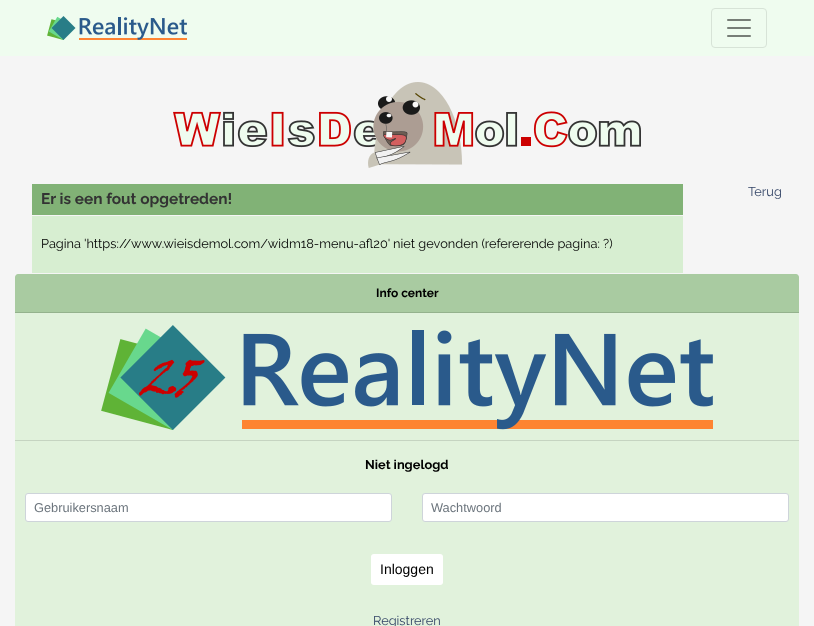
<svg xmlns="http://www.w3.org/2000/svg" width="814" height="626">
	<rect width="100%" height="100%" fill="#F5F5F5" />
	<rect x="0" y="0" width="814" height="56" fill="#EFFCEF" />
	<image x="47" y="16" width="140" height="24" href="assets/img1.png" />
	<rect x="711.5" y="8.5" width="55" height="39" rx="3.5" fill="none" stroke="#D7E3D7" />
	<image x="727" y="19" width="24" height="18" href="assets/img2.png" />
	<image x="173" y="82" width="468" height="86" href="assets/img3.png" />
	<rect x="32" y="184" width="651" height="31" fill="#81B276" />
	<text x="41" y="204" font-family="Raleway" font-size="15.4" font-weight="700" fill="#333333">Er is een fout opgetreden!</text>
	<rect x="32" y="216" width="651" height="57" fill="#D7EED1" />
	<text x="41" y="248" font-family="Raleway" font-size="12.8" fill="#000000">Pagina 'https://www.wieisdemol.com/widm18-menu-afl20' niet gevonden (refererende pagina: ?)</text>
	<text x="748" y="196" font-family="Raleway" font-size="12.8" fill="#334466">Terug</text>
	<path d="M18 274H796C797.5 274 799 275.5 799 277V313H15V277C15 275.5 16.5 274 18 274Z" fill="#A9CBA1" />
	<rect x="15" y="312" width="784" height="1" fill="#94B28D" />
	<text x="376" y="297" font-family="Raleway" font-size="12" font-weight="700" fill="#000000">Info center</text>
	<rect x="15" y="313" width="784" height="127" fill="#E1F2DC" />
	<image x="101" y="325" width="612" height="105" href="assets/img4.png" />
	<rect x="15" y="441" width="784" height="185" fill="#E1F2DC" />
	<rect x="15" y="440" width="784" height="1" fill="#C5D4C1" />
	<text x="365" y="469" font-family="Raleway" font-size="12.8" font-weight="700" fill="#000000">Niet ingelogd</text>
	<rect x="25.5" y="493.5" width="366" height="28" rx="2.5" fill="#FFFFFF" stroke="#CED4DA" />
	<text x="34" y="512" font-family="Liberation Sans" font-size="12.8" fill="#6C757D">Gebruikersnaam</text>
	<rect x="422.5" y="493.5" width="366" height="28" rx="2.5" fill="#FFFFFF" stroke="#CED4DA" />
	<text x="431" y="512" font-family="Liberation Sans" font-size="12.8" fill="#6C757D">Wachtwoord</text>
	<rect x="371" y="554" width="72" height="31" rx="3" fill="#FFFFFF" />
	<text x="380" y="574" font-family="Liberation Sans" font-size="14" fill="#000000">Inloggen</text>
	<text x="373" y="625" font-family="Raleway" font-size="12.8" fill="#334466">Registreren</text>
</svg>
